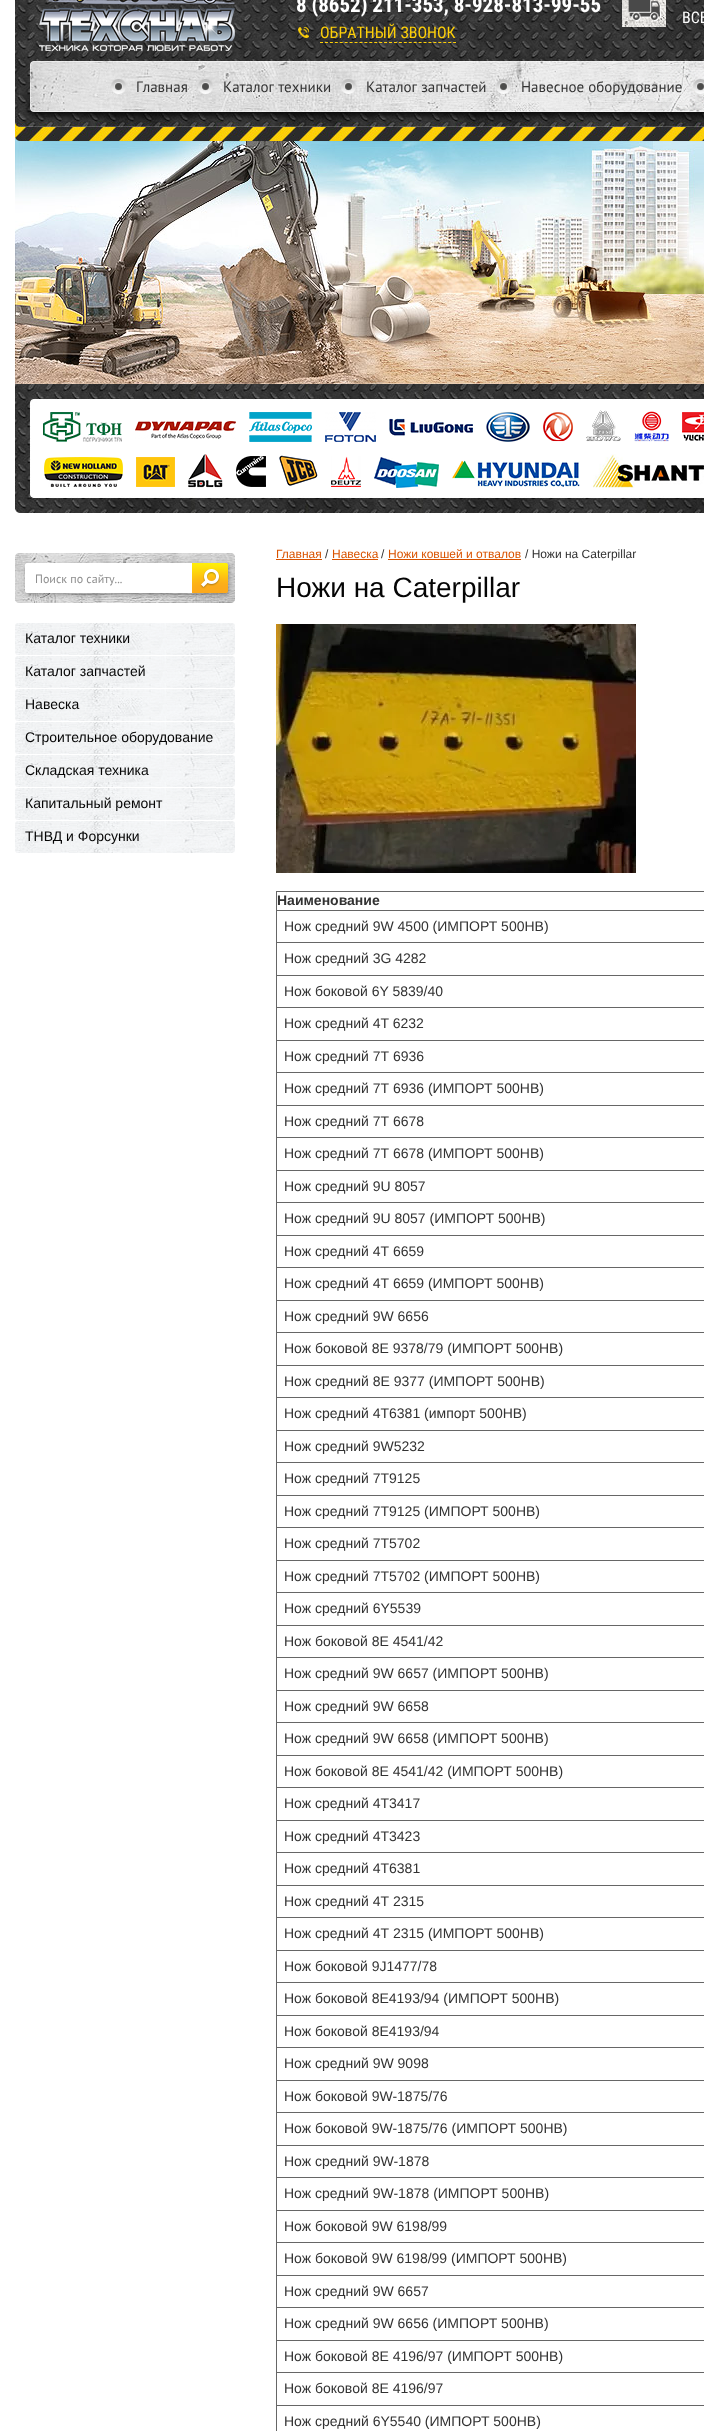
<svg xmlns="http://www.w3.org/2000/svg" width="704" height="2431">
	<rect width="100%" height="100%" fill="#FFFFFF" />
	<image x="15" y="0" width="689" height="141" href="assets/img1.png" />
	<image x="39" y="0" width="196" height="51" href="assets/img2.png" />
	<text x="296" y="12" font-family="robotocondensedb" font-size="21" font-weight="700" fill="#FFFFFF">8 (8652) 211-353, 8-928-813-99-55</text>
	<image x="622" y="0" width="44" height="27" href="assets/img3.png" />
	<text x="682" y="23" font-family="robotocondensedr" font-size="16" fill="#FFFFFF">ВСЕ</text>
	<image x="298" y="27" width="11" height="11" href="assets/img4.png" />
	<text x="320" y="38" font-family="robotocondensedr" font-size="16" fill="#FDCF08">ОБРАТНЫЙ ЗВОНОК</text>
	<path d="M320 42.5H456" fill="none" stroke="#FDCF08" stroke-dasharray="3 1.93" />
	<image x="26" y="61" width="678" height="59" href="assets/img5.png" />
	<image x="111" y="79" width="15" height="15" href="assets/img6.png" />
	<text x="136" y="92" font-family="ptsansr" font-size="15" fill="#323232">Главная</text>
	<image x="198" y="79" width="15" height="15" href="assets/img7.png" />
	<text x="223" y="92" font-family="ptsansr" font-size="15" fill="#323232">Каталог техники</text>
	<image x="341" y="79" width="15" height="15" href="assets/img8.png" />
	<text x="366" y="92" font-family="ptsansr" font-size="15" fill="#323232">Каталог запчастей</text>
	<image x="496" y="79" width="15" height="15" href="assets/img9.png" />
	<text x="521" y="92" font-family="ptsansr" font-size="15" fill="#323232">Навесное оборудование</text>
	<image x="693" y="79" width="11" height="15" href="assets/img10.png" />
	<image x="15" y="141" width="689" height="243" href="assets/img11.png" />
	<image x="15" y="384" width="689" height="129" href="assets/img12.png" />
	<image x="43" y="412" width="79" height="30" href="assets/img13.png" />
	<image x="135" y="421" width="101" height="18" href="assets/img14.png" />
	<image x="249" y="412" width="63" height="30" href="assets/img15.png" />
	<image x="325" y="412" width="51" height="30" href="assets/img16.png" />
	<image x="389" y="418" width="84" height="18" href="assets/img17.png" />
	<image x="486" y="412" width="44" height="30" href="assets/img18.png" />
	<image x="543" y="412" width="30" height="30" href="assets/img19.png" />
	<image x="586" y="410" width="35" height="32" href="assets/img20.png" />
	<image x="634" y="411" width="35" height="31" href="assets/img21.png" />
	<image x="682" y="412" width="22" height="29" href="assets/img22.png" />
	<image x="44" y="457" width="79" height="30" href="assets/img23.png" />
	<image x="136" y="457" width="39" height="30" href="assets/img24.png" />
	<image x="188" y="454" width="35" height="34" href="assets/img25.png" />
	<image x="236" y="456" width="30" height="31" href="assets/img26.png" />
	<image x="279" y="455" width="39" height="31" href="assets/img27.png" />
	<image x="331" y="456" width="30" height="31" href="assets/img28.png" />
	<image x="374" y="457" width="65" height="31" href="assets/img29.png" />
	<image x="452" y="460" width="128" height="27" href="assets/img30.png" />
	<image x="593" y="454" width="111" height="34" href="assets/img31.png" />
	<image x="15" y="553" width="220" height="50" href="assets/img32.png" />
	<text x="35" y="583" font-family="ptsansr" font-size="12" fill="#8E8E8E">Поиск по сайту...</text>
	<image x="15" y="623" width="220" height="32" href="assets/img33.png" />
	<text x="25" y="643" font-family="Liberation Sans" font-size="14" fill="#050505">Каталог техники</text>
	<image x="15" y="656" width="220" height="32" href="assets/img33.png" />
	<text x="25" y="676" font-family="Liberation Sans" font-size="14" fill="#050505">Каталог запчастей</text>
	<image x="15" y="689" width="220" height="32" href="assets/img33.png" />
	<text x="25" y="709" font-family="Liberation Sans" font-size="14" fill="#050505">Навеска</text>
	<image x="15" y="722" width="220" height="32" href="assets/img33.png" />
	<text x="25" y="742" font-family="Liberation Sans" font-size="14" fill="#050505">Строительное оборудование</text>
	<image x="15" y="755" width="220" height="32" href="assets/img33.png" />
	<text x="25" y="775" font-family="Liberation Sans" font-size="14" fill="#050505">Складская техника</text>
	<image x="15" y="788" width="220" height="32" href="assets/img33.png" />
	<text x="25" y="808" font-family="Liberation Sans" font-size="14" fill="#050505">Капитальный ремонт</text>
	<image x="15" y="821" width="220" height="32" href="assets/img33.png" />
	<text x="25" y="841" font-family="Liberation Sans" font-size="14" fill="#050505">ТНВД и Форсунки</text>
	<text x="276" y="558" font-family="Liberation Sans" font-size="12" fill="#D95300">Главная</text>
	<rect x="276" y="559" width="46" height="1" fill="#D95300" />
	<text x="325" y="558" font-family="Liberation Sans" font-size="12" fill="#323232">/</text>
	<text x="332" y="558" font-family="Liberation Sans" font-size="12" fill="#D95300">Навеска</text>
	<rect x="332" y="559" width="46" height="1" fill="#D95300" />
	<text x="381" y="558" font-family="Liberation Sans" font-size="12" fill="#323232">/</text>
	<text x="388" y="558" font-family="Liberation Sans" font-size="12" fill="#D95300">Ножи ковшей и отвалов</text>
	<rect x="388" y="559" width="133" height="1" fill="#D95300" />
	<text x="525" y="558" font-family="Liberation Sans" font-size="12" fill="#323232">/ Ножи на Caterpillar</text>
	<text x="276" y="597" font-family="Liberation Sans" font-size="28" fill="#050505">Ножи на Caterpillar</text>
	<image x="276" y="624" width="360" height="249" href="assets/img34.png" />
	<rect x="276" y="891" width="428" height="1" fill="#666666" />
	<rect x="276" y="891" width="1" height="1540" fill="#666666" />
	<text x="277" y="905" font-family="Liberation Sans" font-size="14" font-weight="700" fill="#323232">Наименование</text>
	<rect x="276" y="910" width="428" height="1" fill="#666666" />
	<text x="284" y="931" font-family="Liberation Sans" font-size="14" fill="#323232">Нож средний 9W 4500 (ИМПОРТ 500НВ)</text>
	<rect x="276" y="942" width="428" height="1" fill="#666666" />
	<text x="284" y="963" font-family="Liberation Sans" font-size="14" fill="#323232">Нож средний 3G 4282</text>
	<rect x="276" y="975" width="428" height="1" fill="#666666" />
	<text x="284" y="996" font-family="Liberation Sans" font-size="14" fill="#323232">Нож боковой 6Y 5839/40</text>
	<rect x="276" y="1007" width="428" height="1" fill="#666666" />
	<text x="284" y="1028" font-family="Liberation Sans" font-size="14" fill="#323232">Нож средний 4T 6232</text>
	<rect x="276" y="1040" width="428" height="1" fill="#666666" />
	<text x="284" y="1061" font-family="Liberation Sans" font-size="14" fill="#323232">Нож средний 7Т 6936</text>
	<rect x="276" y="1072" width="428" height="1" fill="#666666" />
	<text x="284" y="1093" font-family="Liberation Sans" font-size="14" fill="#323232">Нож средний 7Т 6936 (ИМПОРТ 500HB)</text>
	<rect x="276" y="1105" width="428" height="1" fill="#666666" />
	<text x="284" y="1126" font-family="Liberation Sans" font-size="14" fill="#323232">Нож средний 7Т 6678</text>
	<rect x="276" y="1137" width="428" height="1" fill="#666666" />
	<text x="284" y="1158" font-family="Liberation Sans" font-size="14" fill="#323232">Нож средний 7Т 6678 (ИМПОРТ 500HB)</text>
	<rect x="276" y="1170" width="428" height="1" fill="#666666" />
	<text x="284" y="1191" font-family="Liberation Sans" font-size="14" fill="#323232">Нож средний 9U 8057</text>
	<rect x="276" y="1202" width="428" height="1" fill="#666666" />
	<text x="284" y="1223" font-family="Liberation Sans" font-size="14" fill="#323232">Нож средний 9U 8057 (ИМПОРТ 500НВ)</text>
	<rect x="276" y="1235" width="428" height="1" fill="#666666" />
	<text x="284" y="1256" font-family="Liberation Sans" font-size="14" fill="#323232">Нож средний 4Т 6659</text>
	<rect x="276" y="1267" width="428" height="1" fill="#666666" />
	<text x="284" y="1288" font-family="Liberation Sans" font-size="14" fill="#323232">Нож средний 4Т 6659 (ИМПОРТ 500НВ)</text>
	<rect x="276" y="1300" width="428" height="1" fill="#666666" />
	<text x="284" y="1321" font-family="Liberation Sans" font-size="14" fill="#323232">Нож средний 9W 6656</text>
	<rect x="276" y="1332" width="428" height="1" fill="#666666" />
	<text x="284" y="1353" font-family="Liberation Sans" font-size="14" fill="#323232">Нож боковой 8Е 9378/79 (ИМПОРТ 500НВ)</text>
	<rect x="276" y="1365" width="428" height="1" fill="#666666" />
	<text x="284" y="1386" font-family="Liberation Sans" font-size="14" fill="#323232">Нож средний 8E 9377 (ИМПОРТ 500НВ)</text>
	<rect x="276" y="1397" width="428" height="1" fill="#666666" />
	<text x="284" y="1418" font-family="Liberation Sans" font-size="14" fill="#323232">Нож средний 4Т6381 (импорт 500НВ)</text>
	<rect x="276" y="1430" width="428" height="1" fill="#666666" />
	<text x="284" y="1451" font-family="Liberation Sans" font-size="14" fill="#323232">Нож средний 9W5232</text>
	<rect x="276" y="1462" width="428" height="1" fill="#666666" />
	<text x="284" y="1483" font-family="Liberation Sans" font-size="14" fill="#323232">Нож средний 7Т9125</text>
	<rect x="276" y="1495" width="428" height="1" fill="#666666" />
	<text x="284" y="1516" font-family="Liberation Sans" font-size="14" fill="#323232">Нож средний 7Т9125 (ИМПОРТ 500HB)</text>
	<rect x="276" y="1527" width="428" height="1" fill="#666666" />
	<text x="284" y="1548" font-family="Liberation Sans" font-size="14" fill="#323232">Нож средний 7Т5702</text>
	<rect x="276" y="1560" width="428" height="1" fill="#666666" />
	<text x="284" y="1581" font-family="Liberation Sans" font-size="14" fill="#323232">Нож средний 7Т5702 (ИМПОРТ 500HB)</text>
	<rect x="276" y="1592" width="428" height="1" fill="#666666" />
	<text x="284" y="1613" font-family="Liberation Sans" font-size="14" fill="#323232">Нож средний 6Y5539</text>
	<rect x="276" y="1625" width="428" height="1" fill="#666666" />
	<text x="284" y="1646" font-family="Liberation Sans" font-size="14" fill="#323232">Нож боковой 8Е 4541/42</text>
	<rect x="276" y="1657" width="428" height="1" fill="#666666" />
	<text x="284" y="1678" font-family="Liberation Sans" font-size="14" fill="#323232">Нож средний 9W 6657 (ИМПОРТ 500НВ)</text>
	<rect x="276" y="1690" width="428" height="1" fill="#666666" />
	<text x="284" y="1711" font-family="Liberation Sans" font-size="14" fill="#323232">Нож средний 9W 6658</text>
	<rect x="276" y="1722" width="428" height="1" fill="#666666" />
	<text x="284" y="1743" font-family="Liberation Sans" font-size="14" fill="#323232">Нож средний 9W 6658 (ИМПОРТ 500HB)</text>
	<rect x="276" y="1755" width="428" height="1" fill="#666666" />
	<text x="284" y="1776" font-family="Liberation Sans" font-size="14" fill="#323232">Нож боковой 8Е 4541/42 (ИМПОРТ 500НВ)</text>
	<rect x="276" y="1787" width="428" height="1" fill="#666666" />
	<text x="284" y="1808" font-family="Liberation Sans" font-size="14" fill="#323232">Нож средний 4T3417</text>
	<rect x="276" y="1820" width="428" height="1" fill="#666666" />
	<text x="284" y="1841" font-family="Liberation Sans" font-size="14" fill="#323232">Нож средний 4T3423</text>
	<rect x="276" y="1852" width="428" height="1" fill="#666666" />
	<text x="284" y="1873" font-family="Liberation Sans" font-size="14" fill="#323232">Нож средний 4T6381</text>
	<rect x="276" y="1885" width="428" height="1" fill="#666666" />
	<text x="284" y="1906" font-family="Liberation Sans" font-size="14" fill="#323232">Нож средний 4Т 2315</text>
	<rect x="276" y="1917" width="428" height="1" fill="#666666" />
	<text x="284" y="1938" font-family="Liberation Sans" font-size="14" fill="#323232">Нож средний 4Т 2315 (ИМПОРТ 500НВ)</text>
	<rect x="276" y="1950" width="428" height="1" fill="#666666" />
	<text x="284" y="1971" font-family="Liberation Sans" font-size="14" fill="#323232">Нож боковой 9J1477/78</text>
	<rect x="276" y="1982" width="428" height="1" fill="#666666" />
	<text x="284" y="2003" font-family="Liberation Sans" font-size="14" fill="#323232">Нож боковой 8E4193/94 (ИМПОРТ 500HB)</text>
	<rect x="276" y="2015" width="428" height="1" fill="#666666" />
	<text x="284" y="2036" font-family="Liberation Sans" font-size="14" fill="#323232">Нож боковой 8E4193/94</text>
	<rect x="276" y="2047" width="428" height="1" fill="#666666" />
	<text x="284" y="2068" font-family="Liberation Sans" font-size="14" fill="#323232">Нож средний 9W 9098</text>
	<rect x="276" y="2080" width="428" height="1" fill="#666666" />
	<text x="284" y="2101" font-family="Liberation Sans" font-size="14" fill="#323232">Нож боковой 9W-1875/76</text>
	<rect x="276" y="2112" width="428" height="1" fill="#666666" />
	<text x="284" y="2133" font-family="Liberation Sans" font-size="14" fill="#323232">Нож боковой 9W-1875/76 (ИМПОРТ 500НВ)</text>
	<rect x="276" y="2145" width="428" height="1" fill="#666666" />
	<text x="284" y="2166" font-family="Liberation Sans" font-size="14" fill="#323232">Нож средний 9W-1878</text>
	<rect x="276" y="2177" width="428" height="1" fill="#666666" />
	<text x="284" y="2198" font-family="Liberation Sans" font-size="14" fill="#323232">Нож средний 9W-1878 (ИМПОРТ 500НВ)</text>
	<rect x="276" y="2210" width="428" height="1" fill="#666666" />
	<text x="284" y="2231" font-family="Liberation Sans" font-size="14" fill="#323232">Нож боковой 9W 6198/99</text>
	<rect x="276" y="2242" width="428" height="1" fill="#666666" />
	<text x="284" y="2263" font-family="Liberation Sans" font-size="14" fill="#323232">Нож боковой 9W 6198/99 (ИМПОРТ 500HB)</text>
	<rect x="276" y="2275" width="428" height="1" fill="#666666" />
	<text x="284" y="2296" font-family="Liberation Sans" font-size="14" fill="#323232">Нож средний 9W 6657</text>
	<rect x="276" y="2307" width="428" height="1" fill="#666666" />
	<text x="284" y="2328" font-family="Liberation Sans" font-size="14" fill="#323232">Нож средний 9W 6656 (ИМПОРТ 500НВ)</text>
	<rect x="276" y="2340" width="428" height="1" fill="#666666" />
	<text x="284" y="2361" font-family="Liberation Sans" font-size="14" fill="#323232">Нож боковой 8Е 4196/97 (ИМПОРТ 500HB)</text>
	<rect x="276" y="2372" width="428" height="1" fill="#666666" />
	<text x="284" y="2393" font-family="Liberation Sans" font-size="14" fill="#323232">Нож боковой 8Е 4196/97</text>
	<rect x="276" y="2405" width="428" height="1" fill="#666666" />
	<text x="284" y="2426" font-family="Liberation Sans" font-size="14" fill="#323232">Нож средний 6Y5540 (ИМПОРТ 500HB)</text>
</svg>
